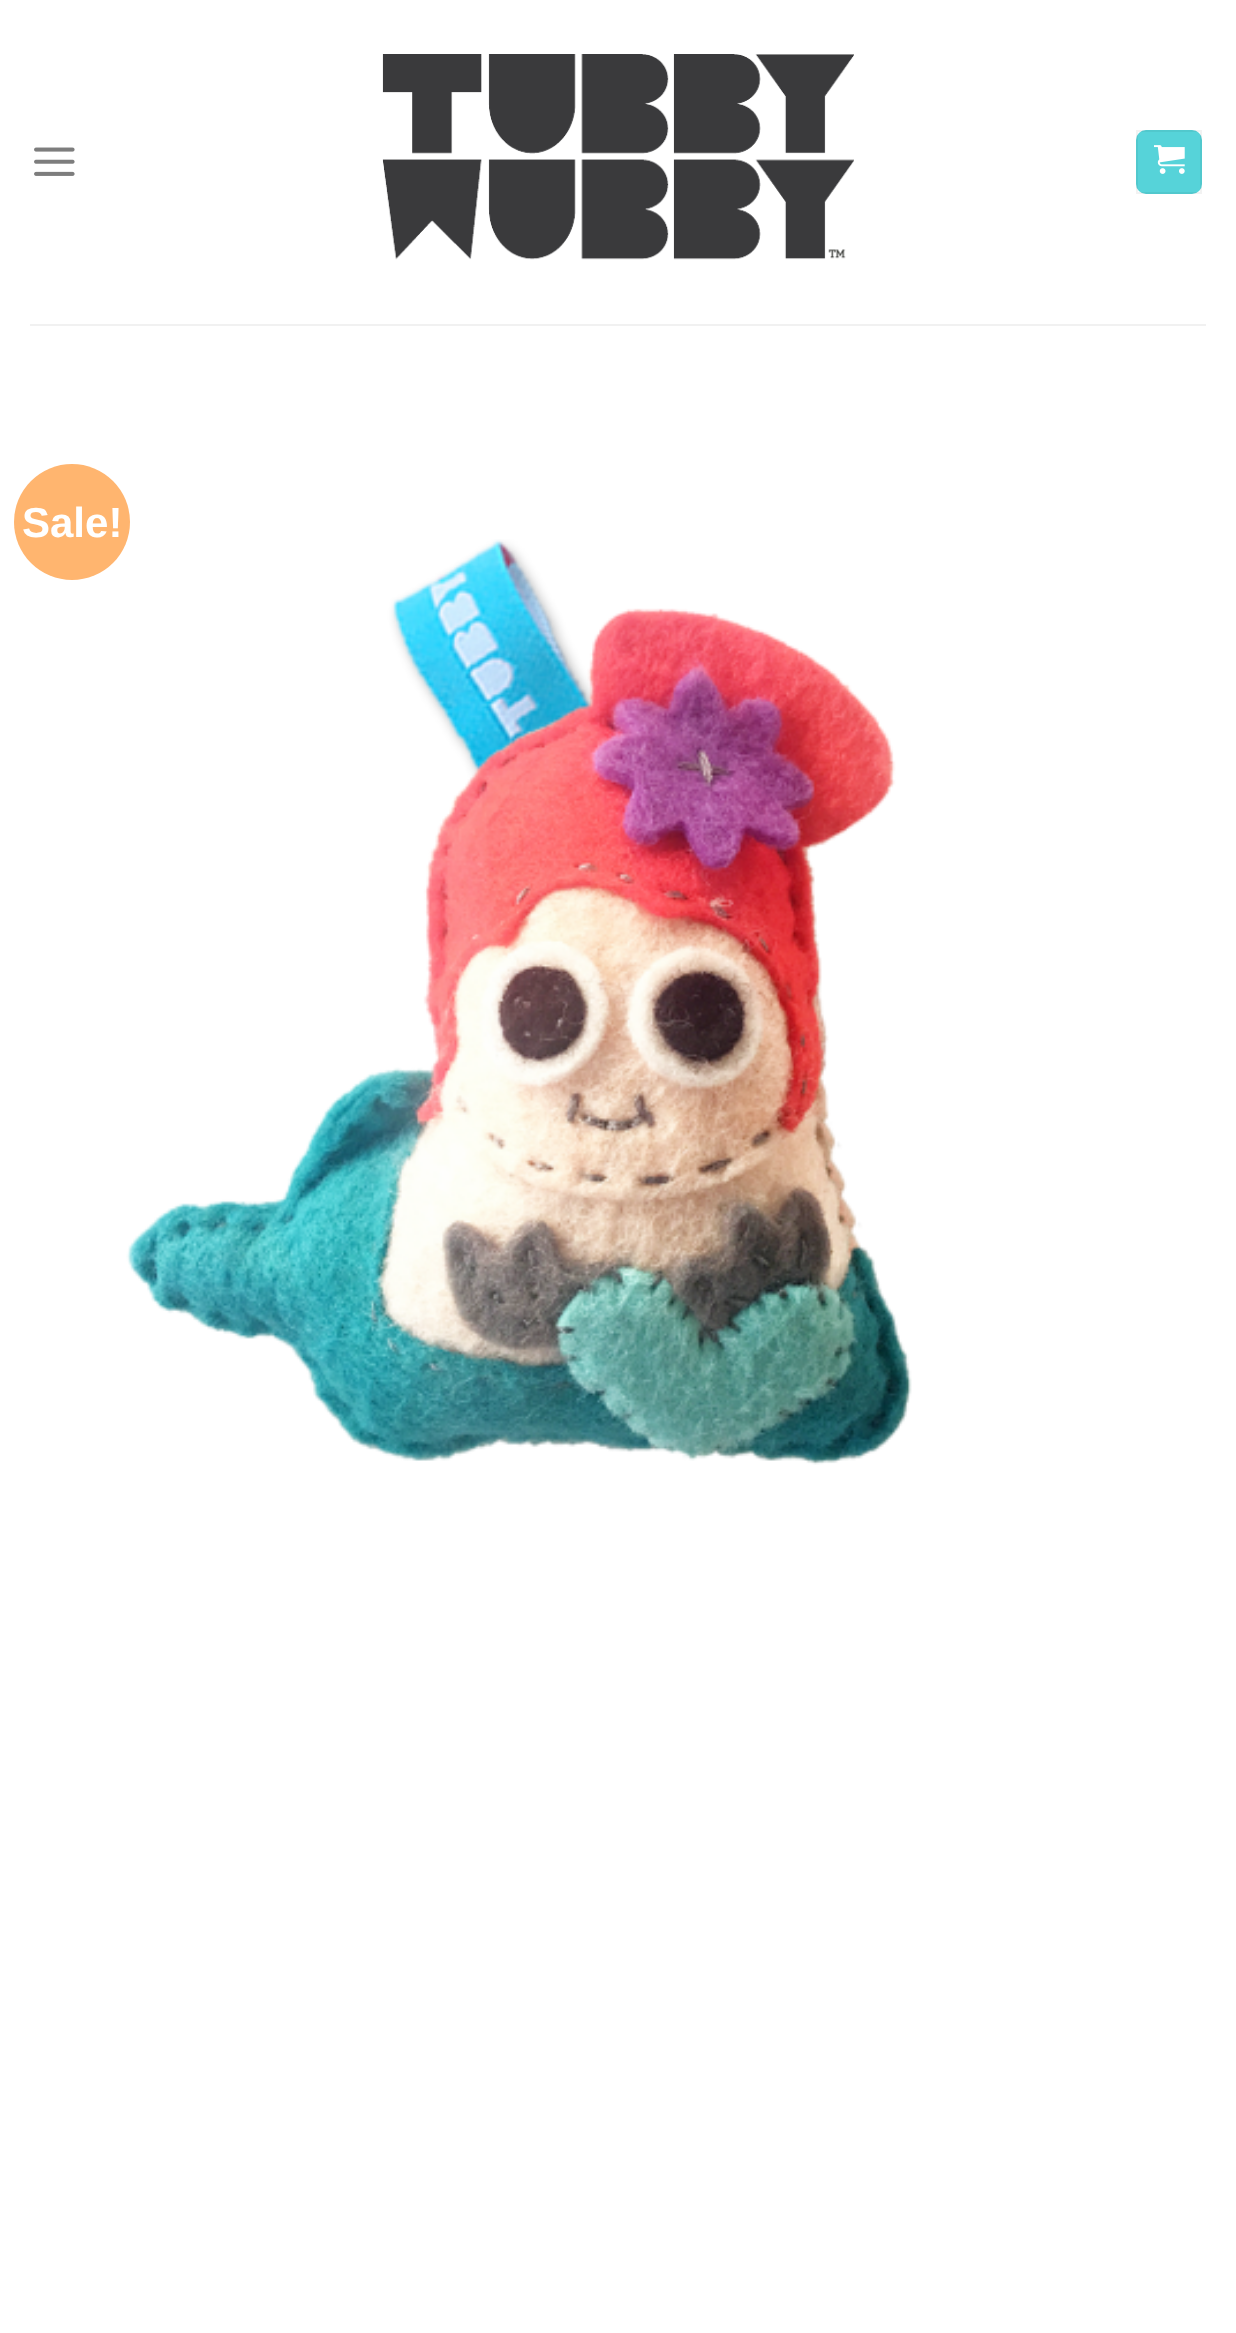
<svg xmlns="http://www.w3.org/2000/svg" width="1236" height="2333">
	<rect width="100%" height="100%" fill="#FFFFFF" />
	<image x="34" y="147" width="41" height="29" href="assets/img1.png" />
	<image x="382" y="54" width="472" height="206" href="assets/img2.png" />
	<rect x="1136" y="130" width="66" height="64" rx="10" fill="#56D3D9" />
	<rect x="1137" y="131" width="64" height="62" fill="none" stroke="#000000" stroke-opacity="0.05" stroke-width="2" />
	<image x="1154" y="145" width="31" height="29" href="assets/img3.png" />
	<rect x="30" y="324" width="1176" height="2" fill="#F1F1F1" />
	<image x="126" y="539" width="786" height="926" href="assets/img4.png" />
	<circle cx="72" cy="522" r="58" fill="#FFB56F" />
	<text x="22" y="537" font-family="Liberation Sans" font-size="42" font-weight="700" fill="#FFFFFF">Sale!</text>
</svg>
